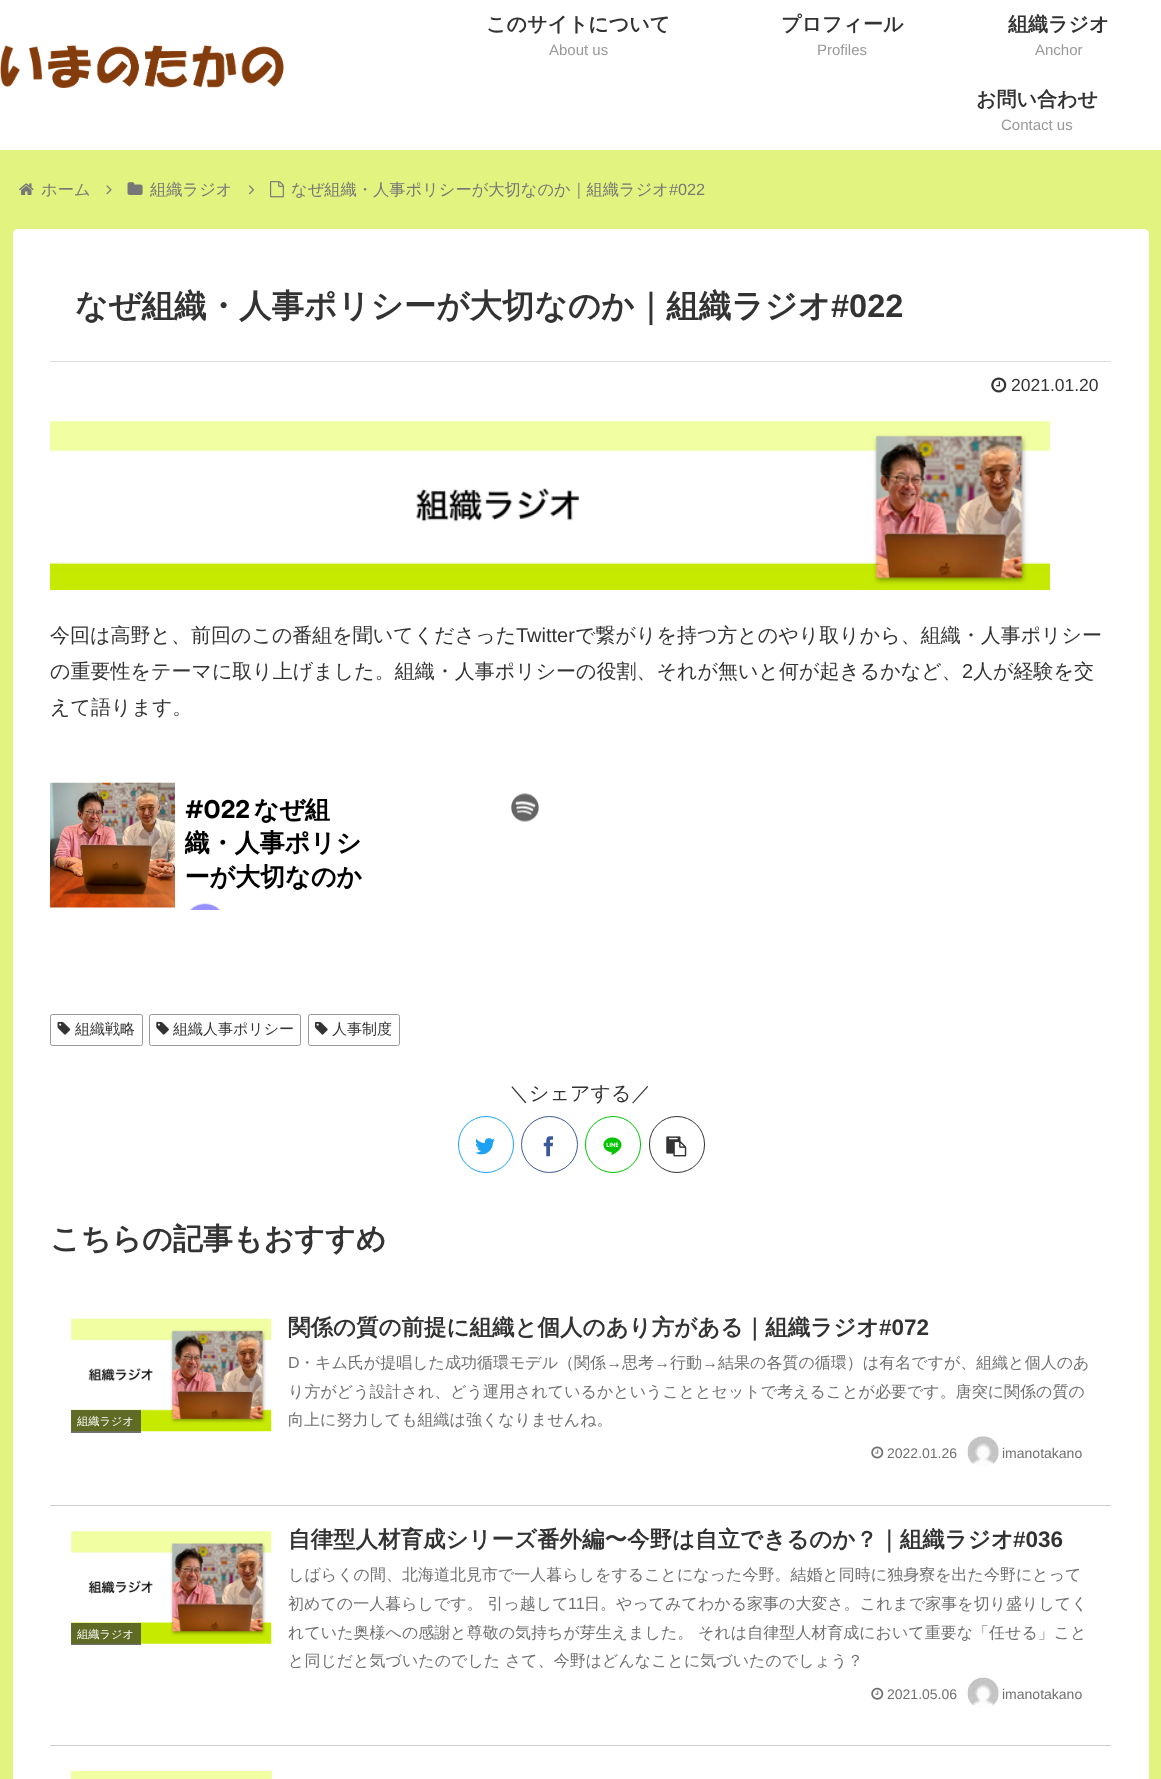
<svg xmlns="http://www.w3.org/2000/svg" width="1161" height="1779">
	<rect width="100%" height="100%" fill="#E2F47F" />
	<rect x="0" y="0" width="1161" height="150" fill="#FFFFFF" />
	<image x="0" y="45" width="284" height="43" href="assets/img1.png" />
	<text x="486" y="31" font-family="WenQuanYi Zen Hei" font-size="20" font-weight="700" fill="#333333">このサイトについて</text>
	<text x="549" y="55" font-family="Liberation Sans" font-size="15" fill="#999999">About us</text>
	<text x="781" y="31" font-family="WenQuanYi Zen Hei" font-size="20" font-weight="700" fill="#333333">プロフィール</text>
	<text x="817" y="55" font-family="Liberation Sans" font-size="15" fill="#999999">Profiles</text>
	<text x="1008" y="31" font-family="WenQuanYi Zen Hei" font-size="20" font-weight="700" fill="#333333">組織ラジオ</text>
	<text x="1035" y="55" font-family="Liberation Sans" font-size="15" fill="#999999">Anchor</text>
	<text x="976" y="106" font-family="WenQuanYi Zen Hei" font-size="20" font-weight="700" fill="#333333">お問い合わせ</text>
	<text x="1001" y="130" font-family="Liberation Sans" font-size="15" fill="#999999">Contact us</text>
	<image x="19" y="183" width="15" height="12" href="assets/img2.png" />
	<text x="41" y="195" font-family="WenQuanYi Zen Hei" font-size="16.25" font-weight="500" fill="#777777">ホーム</text>
	<image x="106" y="185" width="6" height="10" href="assets/img3.png" />
	<image x="127" y="182" width="16" height="13" href="assets/img4.png" />
	<text x="150" y="195" font-family="WenQuanYi Zen Hei" font-size="16.25" font-weight="500" fill="#777777">組織ラジオ</text>
	<image x="248" y="185" width="7" height="10" href="assets/img5.png" />
	<image x="270" y="181" width="14" height="17" href="assets/img6.png" />
	<text x="291" y="195" font-family="WenQuanYi Zen Hei" font-size="16.25" font-weight="500" fill="#777777">なぜ組織・人事ポリシーが大切なのか｜組織ラジオ</text>
	<text x="669" y="195" font-family="Liberation Sans" font-size="16.25" fill="#777777">#022</text>
	<rect x="13" y="229" width="1136" height="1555" rx="5" fill="#FFFFFF" />
	<rect x="50" y="361" width="1061" height="1" fill="#DDDDDD" />
	<text x="75" y="317" font-family="WenQuanYi Zen Hei" font-size="32.5" font-weight="700" fill="#333333">なぜ組織・人事ポリシーが大切なのか｜組織ラジオ</text>
	<text x="831" y="317" font-family="Liberation Sans" font-size="32.5" font-weight="700" fill="#333333">#022</text>
	<image x="991" y="377" width="16" height="16" href="assets/img7.png" />
	<text x="1011" y="391" font-family="Liberation Sans" font-size="17.5" fill="#333333">2021.01.20</text>
	<image x="50" y="421" width="1000" height="169" href="assets/img8.png" />
	<text x="50" y="642" font-family="WenQuanYi Zen Hei" font-size="20" font-weight="500" fill="#333333">今回は高野と、前回のこの番組を聞いてくださった</text>
	<text x="516" y="642" font-family="Liberation Sans" font-size="20" fill="#333333">Twitter</text>
	<g font-family="WenQuanYi Zen Hei" font-size="20" font-weight="500" fill="#333333">
		<text x="575" y="642">で繋がりを持つ方とのやり取りから、組織・人事ポリシー</text>
		<text x="50" y="678">の重要性をテーマに取り上げました。組織・人事ポリシーの役割、それが無いと何が起きるかなど、</text>
	</g>
	<text x="962" y="678" font-family="Liberation Sans" font-size="20" fill="#333333">2</text>
	<g font-family="WenQuanYi Zen Hei" font-size="20" font-weight="500" fill="#333333">
		<text x="973" y="678">人が経験を交</text>
		<text x="50" y="714">えて語ります。</text>
	</g>
	<image x="50" y="782" width="489" height="128" href="assets/img9.png" />
	<rect x="50.5" y="1014.5" width="92" height="31" rx="2" fill="none" stroke="#999999" />
	<image x="57" y="1021" width="14" height="14" href="assets/img10.png" />
	<text x="75" y="1034" font-family="WenQuanYi Zen Hei" font-size="15" font-weight="500" fill="#333333">組織戦略</text>
	<rect x="149.5" y="1014.5" width="151" height="31" rx="2" fill="none" stroke="#999999" />
	<image x="156" y="1021" width="13" height="14" href="assets/img11.png" />
	<text x="173" y="1034" font-family="WenQuanYi Zen Hei" font-size="15" font-weight="500" fill="#333333">組織人事ポリシー</text>
	<rect x="308.5" y="1014.5" width="91" height="31" rx="2" fill="none" stroke="#999999" />
	<image x="315" y="1021" width="13" height="14" href="assets/img12.png" />
	<text x="332" y="1034" font-family="WenQuanYi Zen Hei" font-size="15" font-weight="500" fill="#333333">人事制度</text>
	<text x="509" y="1100" font-family="WenQuanYi Zen Hei" font-size="20" font-weight="500" fill="#333333">＼シェアする／</text>
	<rect x="458.5" y="1116.5" width="55" height="56" rx="27.5" fill="none" stroke="#1DA1F2" />
	<image x="475" y="1138" width="20" height="17" href="assets/img13.png" />
	<circle cx="549.5" cy="1144.5" r="28" fill="none" stroke="#3B5998" />
	<image x="543" y="1136" width="11" height="21" href="assets/img14.png" />
	<rect x="585.5" y="1116.5" width="55" height="56" rx="27.5" fill="none" stroke="#00C300" />
	<image x="603" y="1137" width="19" height="18" href="assets/img15.png" />
	<rect x="649.5" y="1116.5" width="55" height="56" rx="27.5" fill="none" stroke="#333333" />
	<image x="666" y="1136" width="21" height="21" href="assets/img16.png" />
	<text x="50" y="1249" font-family="WenQuanYi Zen Hei" font-size="30" font-weight="700" fill="#333333">こちらの記事もおすすめ</text>
	<rect x="50" y="1505" width="1061" height="1" fill="#CCCCCC" />
	<image x="71" y="1318" width="201" height="114" href="assets/img17.png" />
	<rect x="71" y="1410" width="70" height="23" fill="#333333" fill-opacity="0.7" />
	<text x="77" y="1425" font-family="WenQuanYi Zen Hei" font-size="11.25" font-weight="500" fill="#FFFFFF">組織ラジオ</text>
	<text x="288" y="1335" font-family="WenQuanYi Zen Hei" font-size="22.5" font-weight="700" fill="#333333">関係の質の前提に組織と個人のあり方がある｜組織ラジオ</text>
	<text x="879" y="1335" font-family="Liberation Sans" font-size="22.5" font-weight="700" fill="#333333">#072</text>
	<text x="288" y="1368" font-family="Liberation Sans" font-size="16" fill="#707070">D</text>
	<text x="299" y="1368" font-family="WenQuanYi Zen Hei" font-size="16" font-weight="500" fill="#707070">・キム氏が提唱した成功循環モデル（関係</text>
	<text x="606" y="1368" font-family="Liberation Sans" font-size="16" fill="#707070">→</text>
	<text x="622" y="1368" font-family="WenQuanYi Zen Hei" font-size="16" font-weight="500" fill="#707070">思考</text>
	<text x="654" y="1368" font-family="Liberation Sans" font-size="16" fill="#707070">→</text>
	<text x="670" y="1368" font-family="WenQuanYi Zen Hei" font-size="16" font-weight="500" fill="#707070">行動</text>
	<text x="702" y="1368" font-family="Liberation Sans" font-size="16" fill="#707070">→</text>
	<g font-family="WenQuanYi Zen Hei" font-size="16" font-weight="500" fill="#707070">
		<text x="718" y="1368">結果の各質の循環）は有名ですが、組織と個人のあ</text>
		<text x="288" y="1397">り方がどう設計され、どう運用されているかということとセットで考えることが必要です。唐突に関係の質の</text>
		<text x="288" y="1425">向上に努力しても組織は強くなりませんね。</text>
	</g>
	<image x="871" y="1446" width="13" height="13" href="assets/img18.png" />
	<text x="887" y="1458" font-family="Liberation Sans" font-size="14" fill="#707070">2022.01.26</text>
	<image x="967" y="1436" width="32" height="31" href="assets/img19.png" />
	<text x="1002" y="1458" font-family="Liberation Sans" font-size="14" fill="#707070">imanotakano</text>
	<rect x="50" y="1745" width="1061" height="1" fill="#CCCCCC" />
	<image x="71" y="1531" width="201" height="113" href="assets/img20.png" />
	<rect x="71" y="1623" width="70" height="22" fill="#333333" fill-opacity="0.7" />
	<text x="77" y="1638" font-family="WenQuanYi Zen Hei" font-size="11.25" font-weight="500" fill="#FFFFFF">組織ラジオ</text>
	<text x="288" y="1547" font-family="WenQuanYi Zen Hei" font-size="22.5" font-weight="700" fill="#333333">自律型人材育成シリーズ番外編〜今野は自立できるのか？｜組織ラジオ</text>
	<text x="1013" y="1547" font-family="Liberation Sans" font-size="22.5" font-weight="700" fill="#333333">#036</text>
	<g font-family="WenQuanYi Zen Hei" font-size="16" font-weight="500" fill="#707070">
		<text x="288" y="1580">しばらくの間、北海道北見市で一人暮らしをすることになった今野。結婚と同時に独身寮を出た今野にとって</text>
		<text x="288" y="1609">初めての一人暮らしです。 引っ越して</text>
	</g>
	<text x="568" y="1609" font-family="Liberation Sans" font-size="16" fill="#707070">11</text>
	<g font-family="WenQuanYi Zen Hei" font-size="16" font-weight="500" fill="#707070">
		<text x="584" y="1609">日。やってみてわかる家事の大変さ。これまで家事を切り盛りしてく</text>
		<text x="288" y="1638">れていた奥様への感謝と尊敬の気持ちが芽生えました。 それは自律型人材育成において重要な「任せる」こと</text>
		<text x="288" y="1666">と同じだと気づいたのでした さて、今野はどんなことに気づいたのでしょう？</text>
	</g>
	<image x="871" y="1687" width="13" height="13" href="assets/img21.png" />
	<text x="887" y="1699" font-family="Liberation Sans" font-size="14" fill="#707070">2021.05.06</text>
	<image x="967" y="1677" width="32" height="31" href="assets/img22.png" />
	<text x="1002" y="1699" font-family="Liberation Sans" font-size="14" fill="#707070">imanotakano</text>
	<rect x="71" y="1771" width="201" height="8" fill="#F1FEA2" />
</svg>
